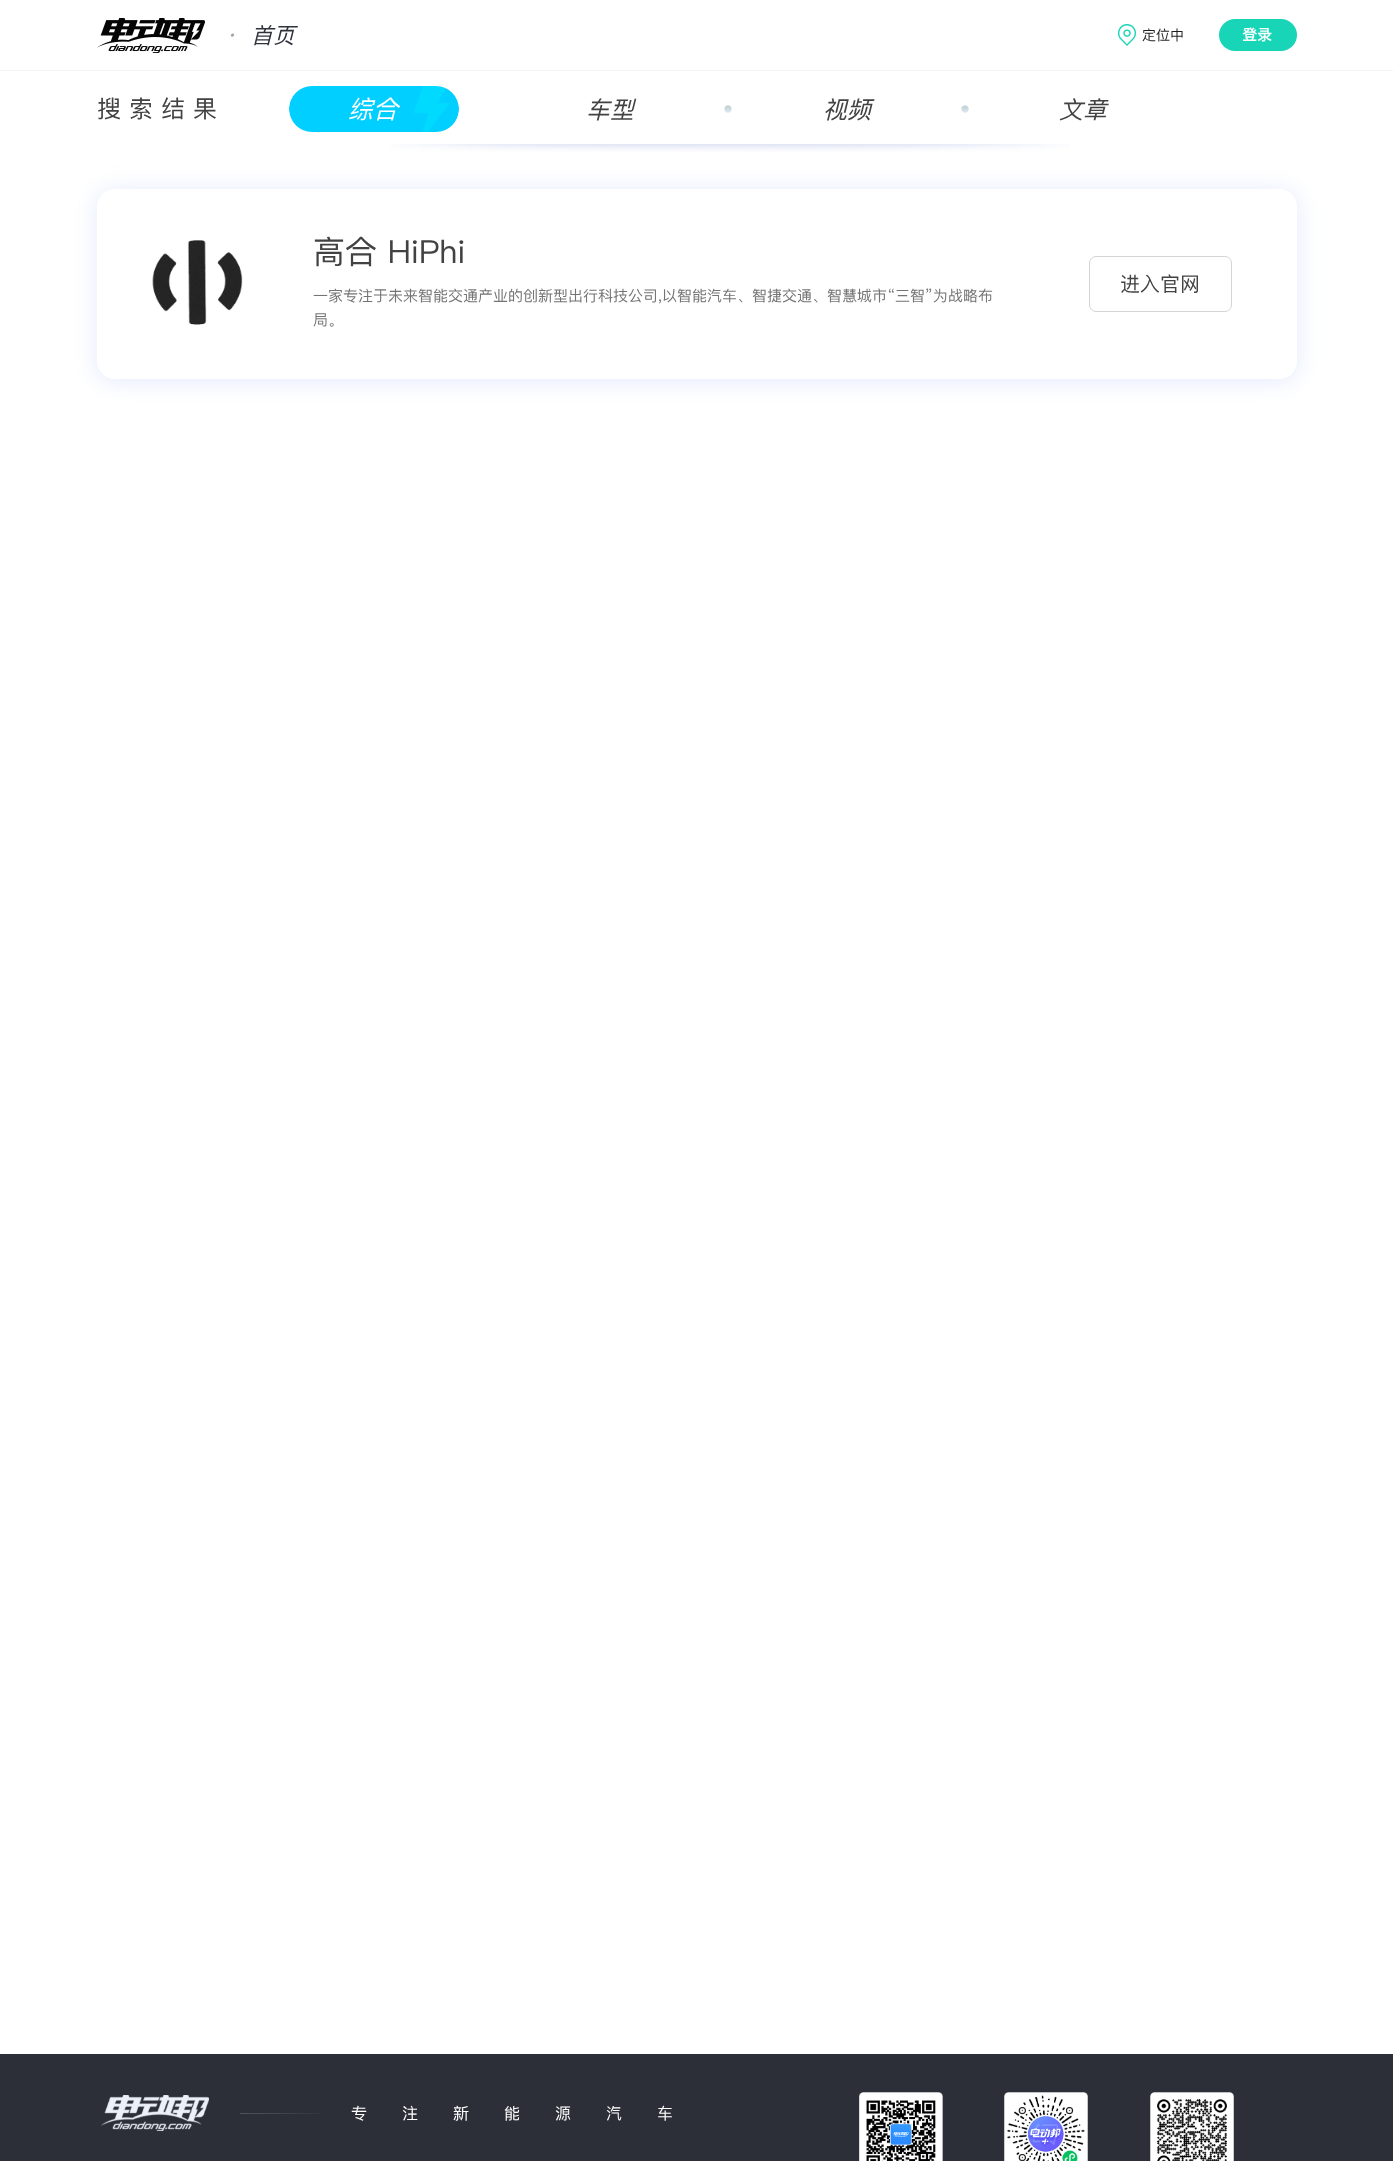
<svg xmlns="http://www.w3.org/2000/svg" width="1393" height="2161">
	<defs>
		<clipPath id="clip1"><path d="M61 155H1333V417H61ZM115 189H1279C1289 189 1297 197 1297 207V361C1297 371 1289 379 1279 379H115C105 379 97 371 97 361V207C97 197 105 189 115 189Z" clip-rule="evenodd" /></clipPath>
	</defs>
	<rect width="100%" height="100%" fill="#FFFFFF" />
	<rect x="0" y="70" width="1393" height="1" fill="#F5F5F5" />
	<image x="97" y="18" width="108" height="35" href="assets/img1.png" />
	<text x="225" y="43" font-family="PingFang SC" font-size="22" font-style="italic" fill="#A4A4A4">·</text>
	<text x="251" y="43" font-family="PingFang SC" font-size="22" font-style="italic" fill="#2F323C">首页</text>
	<image x="1118" y="24" width="18" height="22" href="assets/img2.png" />
	<text x="1142" y="40" font-family="PingFang SC" font-size="14" fill="#1D1D1D">定位中</text>
	<rect x="1219" y="19" width="78" height="32" rx="16" fill="#18D5B8" />
	<text x="1242" y="40" font-family="PingFang SC" font-size="15" font-weight="700" fill="#FFFFFF">登录</text>
	<text x="97" y="117" font-family="PingFang SC" font-size="24" letter-spacing="8" fill="#424242">搜索结果</text>
	<image x="289" y="86" width="170" height="46" href="assets/img3.png" />
	<text x="348" y="118" font-family="PingFang SC" font-size="25" font-style="italic" fill="#FFFFFF">综合</text>
	<text x="586" y="118" font-family="PingFang SC" font-size="24" font-style="italic" fill="#424242">车型</text>
	<image x="724" y="105" width="8" height="8" href="assets/img4.png" />
	<text x="823" y="118" font-family="PingFang SC" font-size="24" font-style="italic" fill="#424242">视频</text>
	<image x="961" y="105" width="8" height="8" href="assets/img4.png" />
	<text x="1059" y="118" font-family="PingFang SC" font-size="24" font-style="italic" fill="#424242">文章</text>
	<image x="391" y="144" width="679" height="8" href="assets/img5.png" />
	<g clip-path="url(#clip1)">
		<rect x="95" y="189" width="1204" height="194" rx="20" fill="#86A7F6" fill-opacity="0.2" filter="blur(11px)" />
	</g>
	<image x="152" y="240" width="91" height="85" href="assets/img6.png" />
	<text x="313" y="263" font-family="PingFang SC" font-size="32" fill="#424242">高合 HiPhi</text>
	<g font-family="PingFang SC" font-size="15" fill="#747474">
		<text x="313" y="301">一家专注于未来智能交通产业的创新型出行科技公司,以智能汽车、智捷交通、智慧城市“三智”为战略布</text>
		<text x="313" y="325">局。</text>
	</g>
	<rect x="1089.5" y="256.5" width="142" height="55" rx="6.5" fill="none" stroke="#D4D4D4" />
	<text x="1120" y="291" font-family="PingFang SC" font-size="20" fill="#424242">进入官网</text>
	<rect x="0" y="2054" width="1393" height="107" fill="#2C2F38" />
	<image x="101" y="2095" width="108" height="36" href="assets/img7.png" />
	<image x="240" y="2113" width="80" height="1" href="assets/img8.png" />
	<text x="351" y="2119" font-family="PingFang SC" font-size="16" letter-spacing="35" fill="#FFFFFF">专注新能源汽车</text>
	<image x="859" y="2092" width="84" height="69" href="assets/img9.png" />
	<image x="1004" y="2092" width="84" height="69" href="assets/img10.png" />
	<image x="1150" y="2092" width="84" height="69" href="assets/img11.png" />
</svg>
